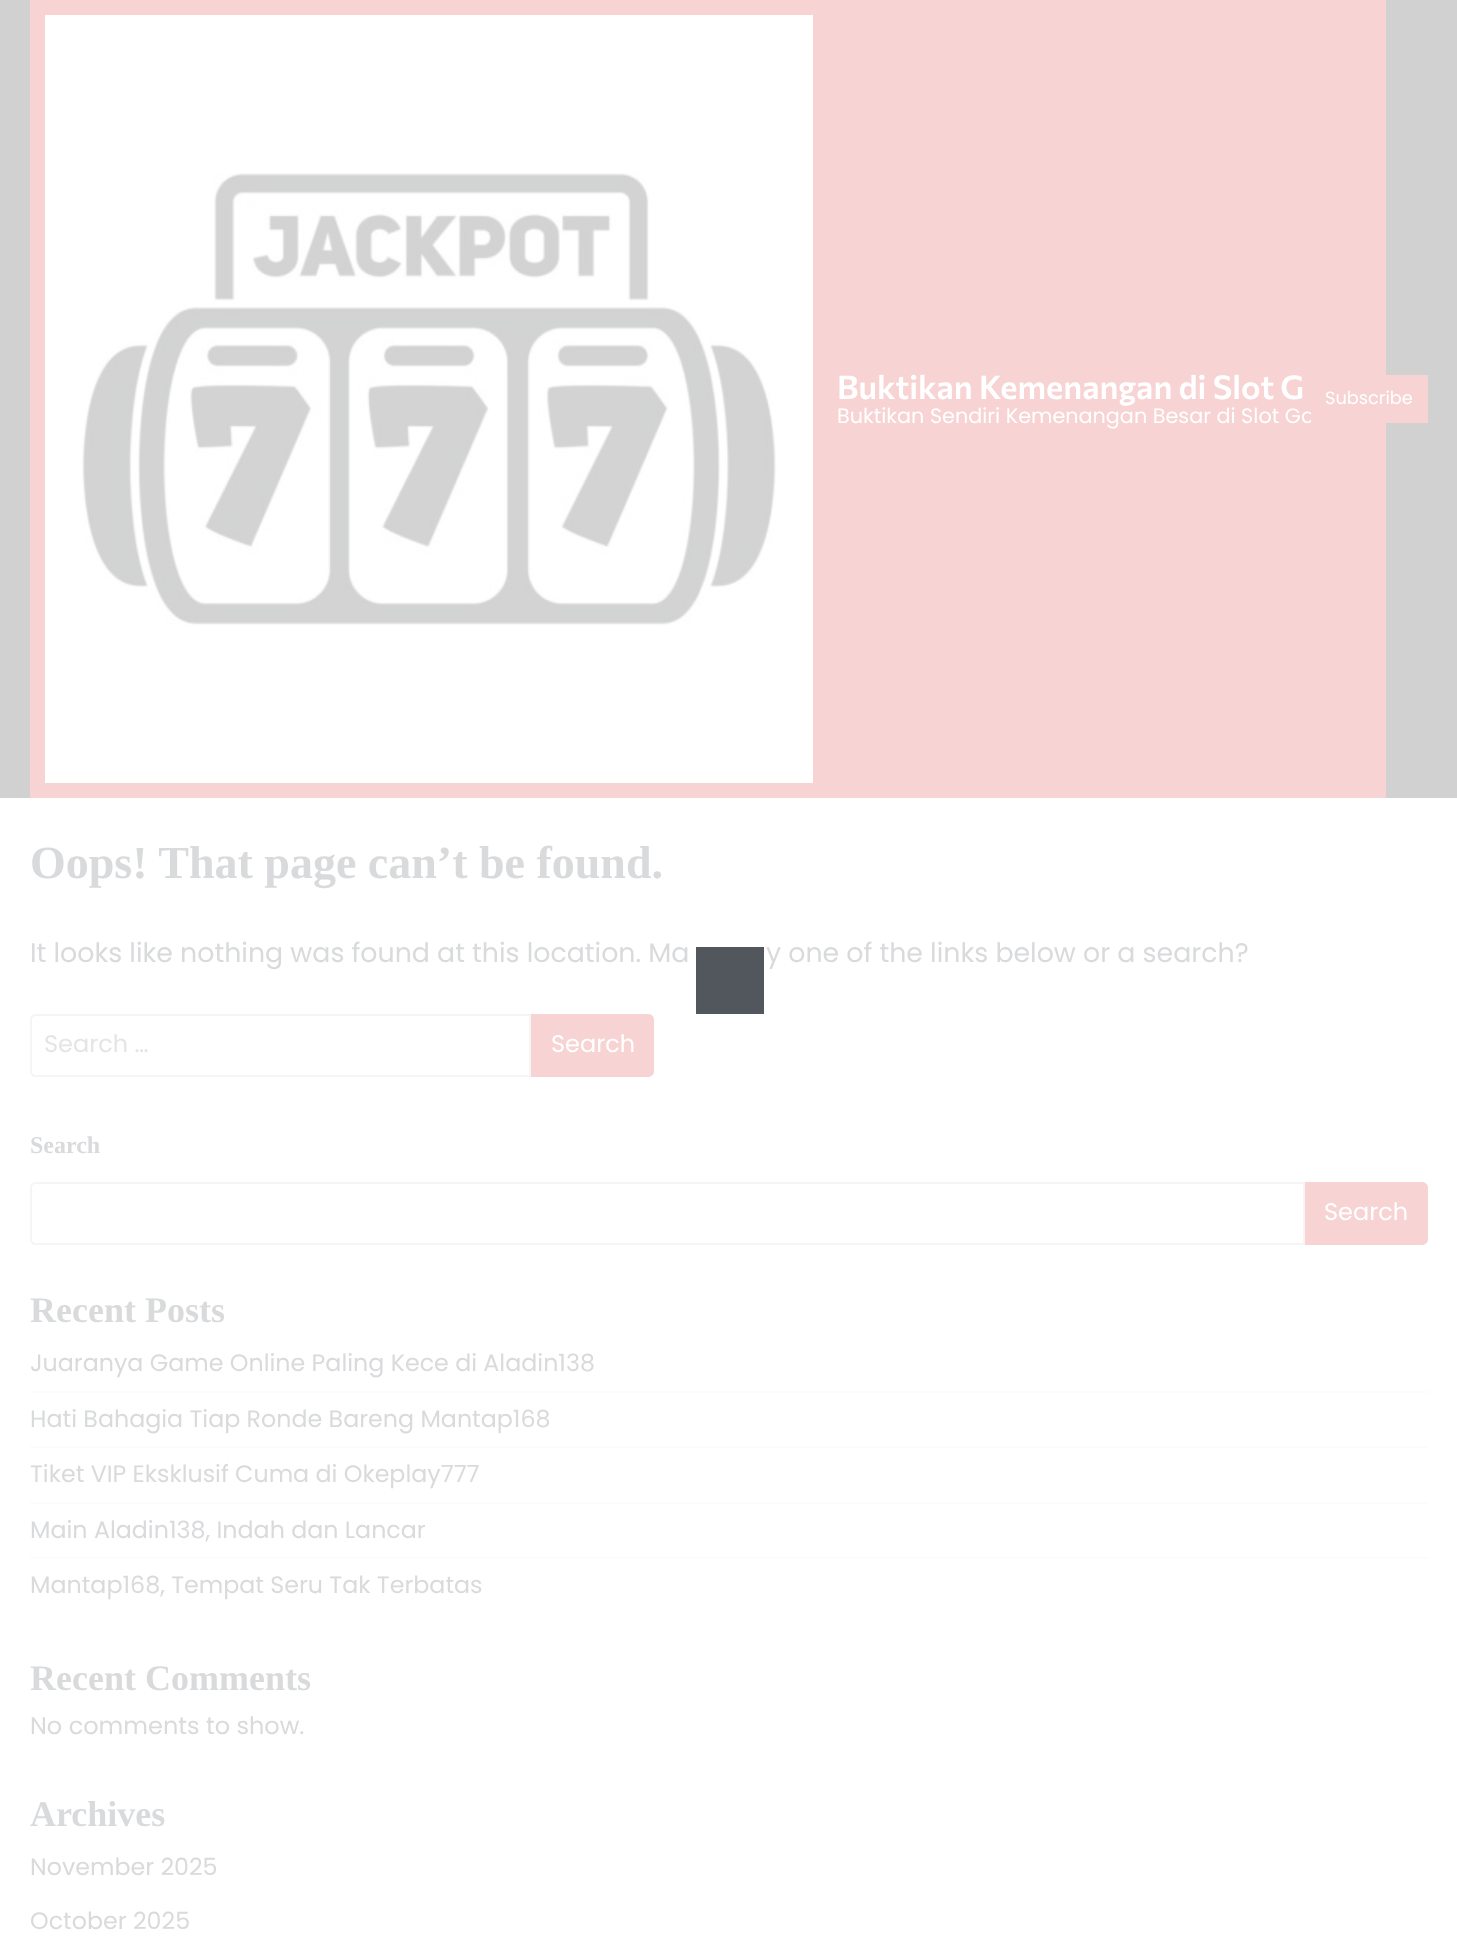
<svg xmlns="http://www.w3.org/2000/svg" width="1457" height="1959">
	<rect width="100%" height="100%" fill="#FFFFFF" />
	<rect x="0" y="0" width="1457" height="798" fill="#D1D1D1" />
	<rect x="30" y="0" width="1356" height="798" fill="#F7D3D3" />
	<image x="45" y="15" width="768" height="768" href="assets/img1.png" />
	<text x="837" y="399" font-family="Commissioner" font-size="32.75" font-weight="600" fill="#FFFFFF">Buktikan Kemenangan di Slot G</text>
	<text x="837" y="423" font-family="Poppins" font-size="20.75" fill="#FFFFFF">Buktikan Sendiri Kemenangan Besar di Slot Ga</text>
	<rect x="1311" y="375" width="117" height="48" fill="#F7D3D3" />
	<text x="1325" y="404" font-family="Poppins" font-size="17.75" fill="#FFFFFF">Subscribe</text>
	<text x="30" y="878" font-family="Liberation Serif" font-size="46" font-weight="700" fill="#D9DADC">Oops! That page can’t be found.</text>
	<g font-family="Poppins" font-size="26.8" fill="#D9DADC">
		<text x="30" y="962">It looks like nothing was found at this location. Ma</text>
		<text x="766" y="962">y one of the links below or a search?</text>
	</g>
	<path d="M36 1015H530V1076H36C33 1076 31 1074 31 1071V1020C31 1017 33 1015 36 1015Z" fill="none" stroke="#F5F5F5" stroke-width="2" />
	<text x="44" y="1052" font-family="Poppins" font-size="24" fill="#E5E5E5">Search …</text>
	<path d="M531 1014H648C651.5 1014 654 1016.5 654 1020V1071C654 1074.5 651.5 1077 648 1077H531Z" fill="#F7D3D3" />
	<text x="551" y="1052" font-family="Poppins" font-size="24" fill="#FFFFFF">Search</text>
	<text x="30" y="1153" font-family="Liberation Serif" font-size="24" font-weight="700" fill="#D9DADC">Search</text>
	<path d="M36 1183H1304V1244H36C33 1244 31 1242 31 1239V1188C31 1185 33 1183 36 1183Z" fill="none" stroke="#F5F5F5" stroke-width="2" />
	<path d="M1305 1182H1422C1425.5 1182 1428 1184.5 1428 1188V1239C1428 1242.5 1425.5 1245 1422 1245H1305Z" fill="#F7D3D3" />
	<text x="1324" y="1220" font-family="Poppins" font-size="24" fill="#FFFFFF">Search</text>
	<text x="30" y="1322" font-family="Liberation Serif" font-size="36" font-weight="700" fill="#D9DADC">Recent Posts</text>
	<rect x="30" y="1391" width="1398" height="2" fill="#FCFCFC" />
	<text x="30" y="1371" font-family="Poppins" font-size="23.75" fill="#D9DADC">Juaranya Game Online Paling Kece di Aladin138</text>
	<rect x="30" y="1446" width="1398" height="2" fill="#FCFCFC" />
	<text x="30" y="1427" font-family="Poppins" font-size="23.75" fill="#D9DADC">Hati Bahagia Tiap Ronde Bareng Mantap168</text>
	<rect x="30" y="1502" width="1398" height="2" fill="#FCFCFC" />
	<text x="30" y="1482" font-family="Poppins" font-size="23.75" fill="#D9DADC">Tiket VIP Eksklusif Cuma di Okeplay777</text>
	<rect x="30" y="1557" width="1398" height="2" fill="#FCFCFC" />
	<g font-family="Poppins" font-size="23.75" fill="#D9DADC">
		<text x="30" y="1538">Main Aladin138, Indah dan Lancar</text>
		<text x="30" y="1593">Mantap168, Tempat Seru Tak Terbatas</text>
	</g>
	<text x="30" y="1690" font-family="Liberation Serif" font-size="36" font-weight="700" fill="#D9DADC">Recent Comments</text>
	<text x="30" y="1734" font-family="Poppins" font-size="24" fill="#D9DADC">No comments to show.</text>
	<text x="30" y="1826" font-family="Liberation Serif" font-size="36" font-weight="700" fill="#D9DADC">Archives</text>
	<g font-family="Poppins" font-size="23.75" fill="#D9DADC">
		<text x="30" y="1875">November 2025</text>
		<text x="30" y="1929">October 2025</text>
	</g>
	<rect x="696" y="947" width="68" height="67" fill="#393E46" fill-opacity="0.5" />
	<rect x="696" y="947" width="68" height="67" fill="#393E46" fill-opacity="0.5" />
	<rect x="696" y="947" width="68" height="67" fill="#393E46" fill-opacity="0.5" />
</svg>
